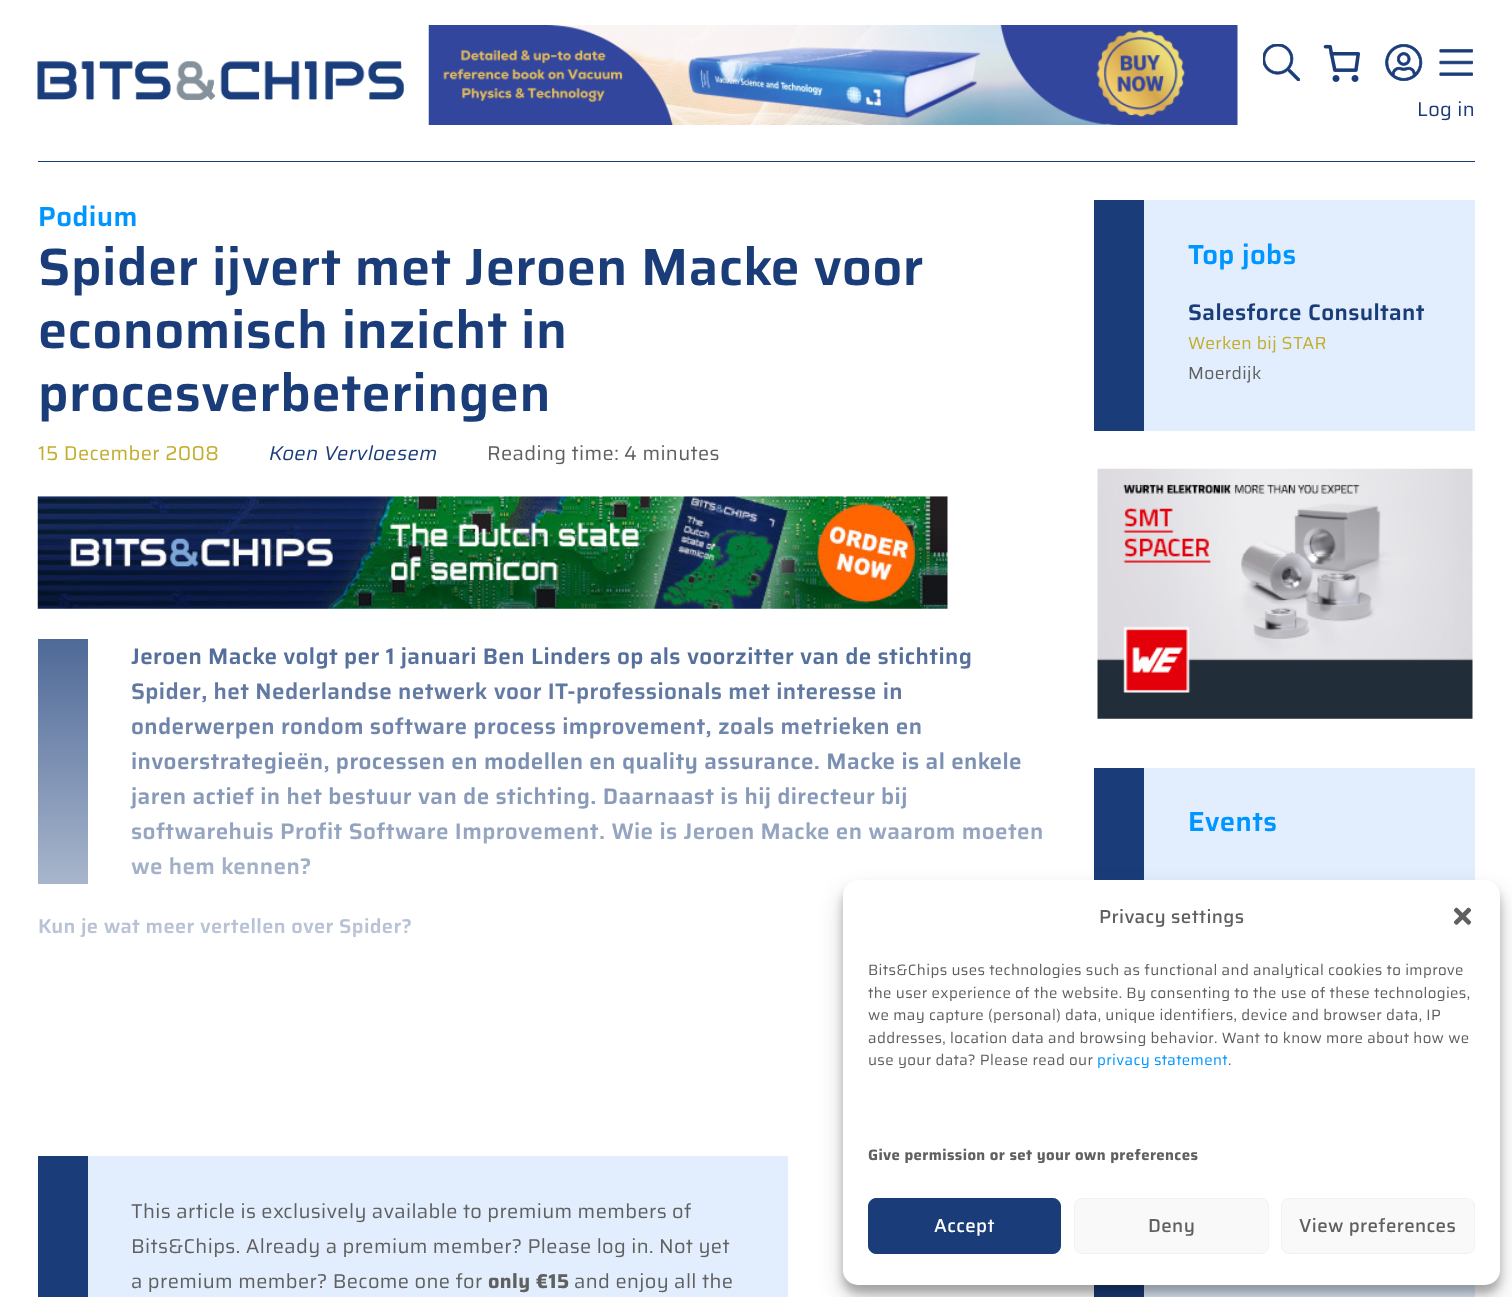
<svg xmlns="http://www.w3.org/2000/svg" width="1512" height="1297">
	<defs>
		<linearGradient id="g1" gradientUnits="userSpaceOnUse" x1="541" y1="496" x2="541" y2="1119"><stop offset="0" stop-color="#FFFFFF" stop-opacity="0" /><stop offset="1" stop-color="#FFFFFF" /></linearGradient>
	</defs>
	<rect width="100%" height="100%" fill="#FFFFFF" />
	<image x="37" y="61" width="367" height="39" href="assets/img1.png" />
	<image x="428" y="25" width="810" height="100" href="assets/img2.png" />
	<image x="1263" y="44" width="37" height="37" href="assets/img3.png" />
	<image x="1323" y="44" width="37" height="38" href="assets/img4.png" />
	<image x="1385" y="44" width="38" height="37" href="assets/img5.png" />
	<image x="1439" y="49" width="34" height="27" href="assets/img6.png" />
	<text x="1417" y="116" font-family="Saira" font-size="20" letter-spacing="0.38" fill="#1A3D79">Log in</text>
	<rect x="38" y="161" width="1437" height="1" fill="#1A3D79" />
	<text x="38" y="226" font-family="Saira" font-size="27.5" font-weight="600" letter-spacing="0.38" fill="#0096FF">Podium</text>
	<g font-family="Saira" font-size="52.5" font-weight="600" letter-spacing="0.38" fill="#1A3D79">
		<text x="38" y="285">Spider ijvert met Jeroen Macke voor</text>
		<text x="38" y="348">economisch inzicht in</text>
		<text x="38" y="411">procesverbeteringen</text>
	</g>
	<text x="38" y="460" font-family="Saira" font-size="20" letter-spacing="0.38" fill="#C3AD2E">15 December 2008</text>
	<text x="269" y="460" font-family="Saira" font-size="20" font-style="italic" letter-spacing="0.38" fill="#1A3D79">Koen Vervloesem</text>
	<text x="487" y="460" font-family="Saira" font-size="20" letter-spacing="0.38" fill="#606060">Reading time: 4 minutes</text>
	<image x="37" y="496" width="911" height="113" href="assets/img7.png" />
	<rect x="38" y="639" width="50" height="245" fill="#1A3D79" />
	<g font-family="Saira" font-size="22.5" font-weight="600" letter-spacing="0.38" fill="#1A3D79">
		<text x="131" y="664">Jeroen Macke volgt per 1 januari Ben Linders op als voorzitter van de stichting</text>
		<text x="131" y="699">Spider, het Nederlandse netwerk voor IT-professionals met interesse in</text>
		<text x="131" y="734">onderwerpen rondom software process improvement, zoals metrieken en</text>
		<text x="131" y="769">invoerstrategieën, processen en modellen en quality assurance. Macke is al enkele</text>
		<text x="131" y="804">jaren actief in het bestuur van de stichting. Daarnaast is hij directeur bij</text>
		<text x="131" y="839">softwarehuis Profit Software Improvement. Wie is Jeroen Macke en waarom moeten</text>
		<text x="131" y="874">we hem kennen?</text>
	</g>
	<text x="38" y="933" font-family="Saira" font-size="20" font-weight="600" letter-spacing="0.38" fill="#1A3D79">Kun je wat meer vertellen over Spider?</text>
	<rect x="38" y="639" width="1004" height="298" fill="url(#g1)" />
	<rect x="88" y="1156" width="700" height="141" fill="#E2EEFD" />
	<rect x="38" y="1156" width="50" height="141" fill="#1A3D79" />
	<g font-family="Saira" font-size="20" letter-spacing="0.38" fill="#606060">
		<text x="131" y="1218">This article is exclusively available to premium members of</text>
		<text x="131" y="1253">Bits&amp;Chips. Already a premium member? Please log in. Not yet</text>
		<text x="131" y="1288">a premium member? Become one for</text>
	</g>
	<text x="488" y="1288" font-family="Saira" font-size="20" font-weight="700" letter-spacing="0.38" fill="#606060">only €15</text>
	<text x="574" y="1288" font-family="Saira" font-size="20" letter-spacing="0.38" fill="#606060">and enjoy all the</text>
	<rect x="1144" y="200" width="331" height="231" fill="#E2EEFD" />
	<rect x="1094" y="200" width="50" height="231" fill="#1A3D79" />
	<text x="1188" y="264" font-family="Saira" font-size="27.5" font-weight="600" letter-spacing="0.38" fill="#0096FF">Top jobs</text>
	<text x="1188" y="320" font-family="Saira" font-size="22.5" font-weight="600" letter-spacing="0.38" fill="#1A3D79">Salesforce Consultant</text>
	<text x="1188" y="349" font-family="Saira" font-size="17.5" letter-spacing="0.38" fill="#C3AD2E">Werken bij STAR</text>
	<text x="1188" y="379" font-family="Saira" font-size="17.5" letter-spacing="0.38" fill="#606060">Moerdijk</text>
	<image x="1097" y="468" width="376" height="251" href="assets/img8.png" />
	<rect x="1144" y="768" width="331" height="112" fill="#E2EEFD" />
	<rect x="1094" y="768" width="50" height="112" fill="#1A3D79" />
	<text x="1188" y="831" font-family="Saira" font-size="27.5" font-weight="600" letter-spacing="0.38" fill="#0096FF">Events</text>
	<rect x="1144" y="1285" width="331" height="12" fill="#E2EEFD" />
	<rect x="1094" y="1285" width="50" height="12" fill="#1A3D79" />
	<rect x="843" y="888" width="657" height="405" rx="15" fill="#000000" fill-opacity="0.23" filter="blur(4px)" />
	<rect x="843" y="893" width="657" height="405" rx="15" fill="#000000" fill-opacity="0.19" filter="blur(12.5px)" />
	<rect x="843" y="880" width="657" height="405" rx="15" fill="#FFFFFF" />
	<text x="1099" y="923" font-family="Saira" font-size="18.75" font-weight="500" letter-spacing="0.38" fill="#606060">Privacy settings</text>
	<image x="1453" y="907" width="19" height="18" href="assets/img9.png" />
	<g font-family="Saira" font-size="15" letter-spacing="0.38" fill="#606060">
		<text x="868" y="975">Bits&amp;Chips uses technologies such as functional and analytical cookies to improve</text>
		<text x="868" y="998">the user experience of the website. By consenting to the use of these technologies,</text>
		<text x="868" y="1020">we may capture (personal) data, unique identifiers, device and browser data, IP</text>
		<text x="868" y="1043">addresses, location data and browsing behavior. Want to know more about how we</text>
		<text x="868" y="1065">use your data? Please read our</text>
	</g>
	<text x="1097" y="1065" font-family="Saira" font-size="15" letter-spacing="0.38" fill="#0096FF">privacy statement</text>
	<text x="1228" y="1065" font-family="Saira" font-size="15" letter-spacing="0.38" fill="#606060">.</text>
	<text x="868" y="1160" font-family="Saira" font-size="15" font-weight="700" letter-spacing="0.38" fill="#606060">Give permission or set your own preferences</text>
	<rect x="868.5" y="1198.5" width="192" height="55" rx="7.5" fill="#1A3D79" stroke="#1A3D79" />
	<text x="934" y="1232" font-family="Saira" font-size="18.75" font-weight="500" letter-spacing="0.38" fill="#FFFFFF">Accept</text>
	<rect x="1074.5" y="1198.5" width="194" height="55" rx="7.5" fill="#F9F9F9" stroke="#F2F2F2" />
	<text x="1148" y="1232" font-family="Saira" font-size="18.75" font-weight="500" letter-spacing="0.38" fill="#606060">Deny</text>
	<rect x="1281.5" y="1198.5" width="193" height="55" rx="7.5" fill="#F9F9F9" stroke="#F2F2F2" />
	<text x="1299" y="1232" font-family="Saira" font-size="18.75" font-weight="500" letter-spacing="0.38" fill="#606060">View preferences</text>
</svg>
